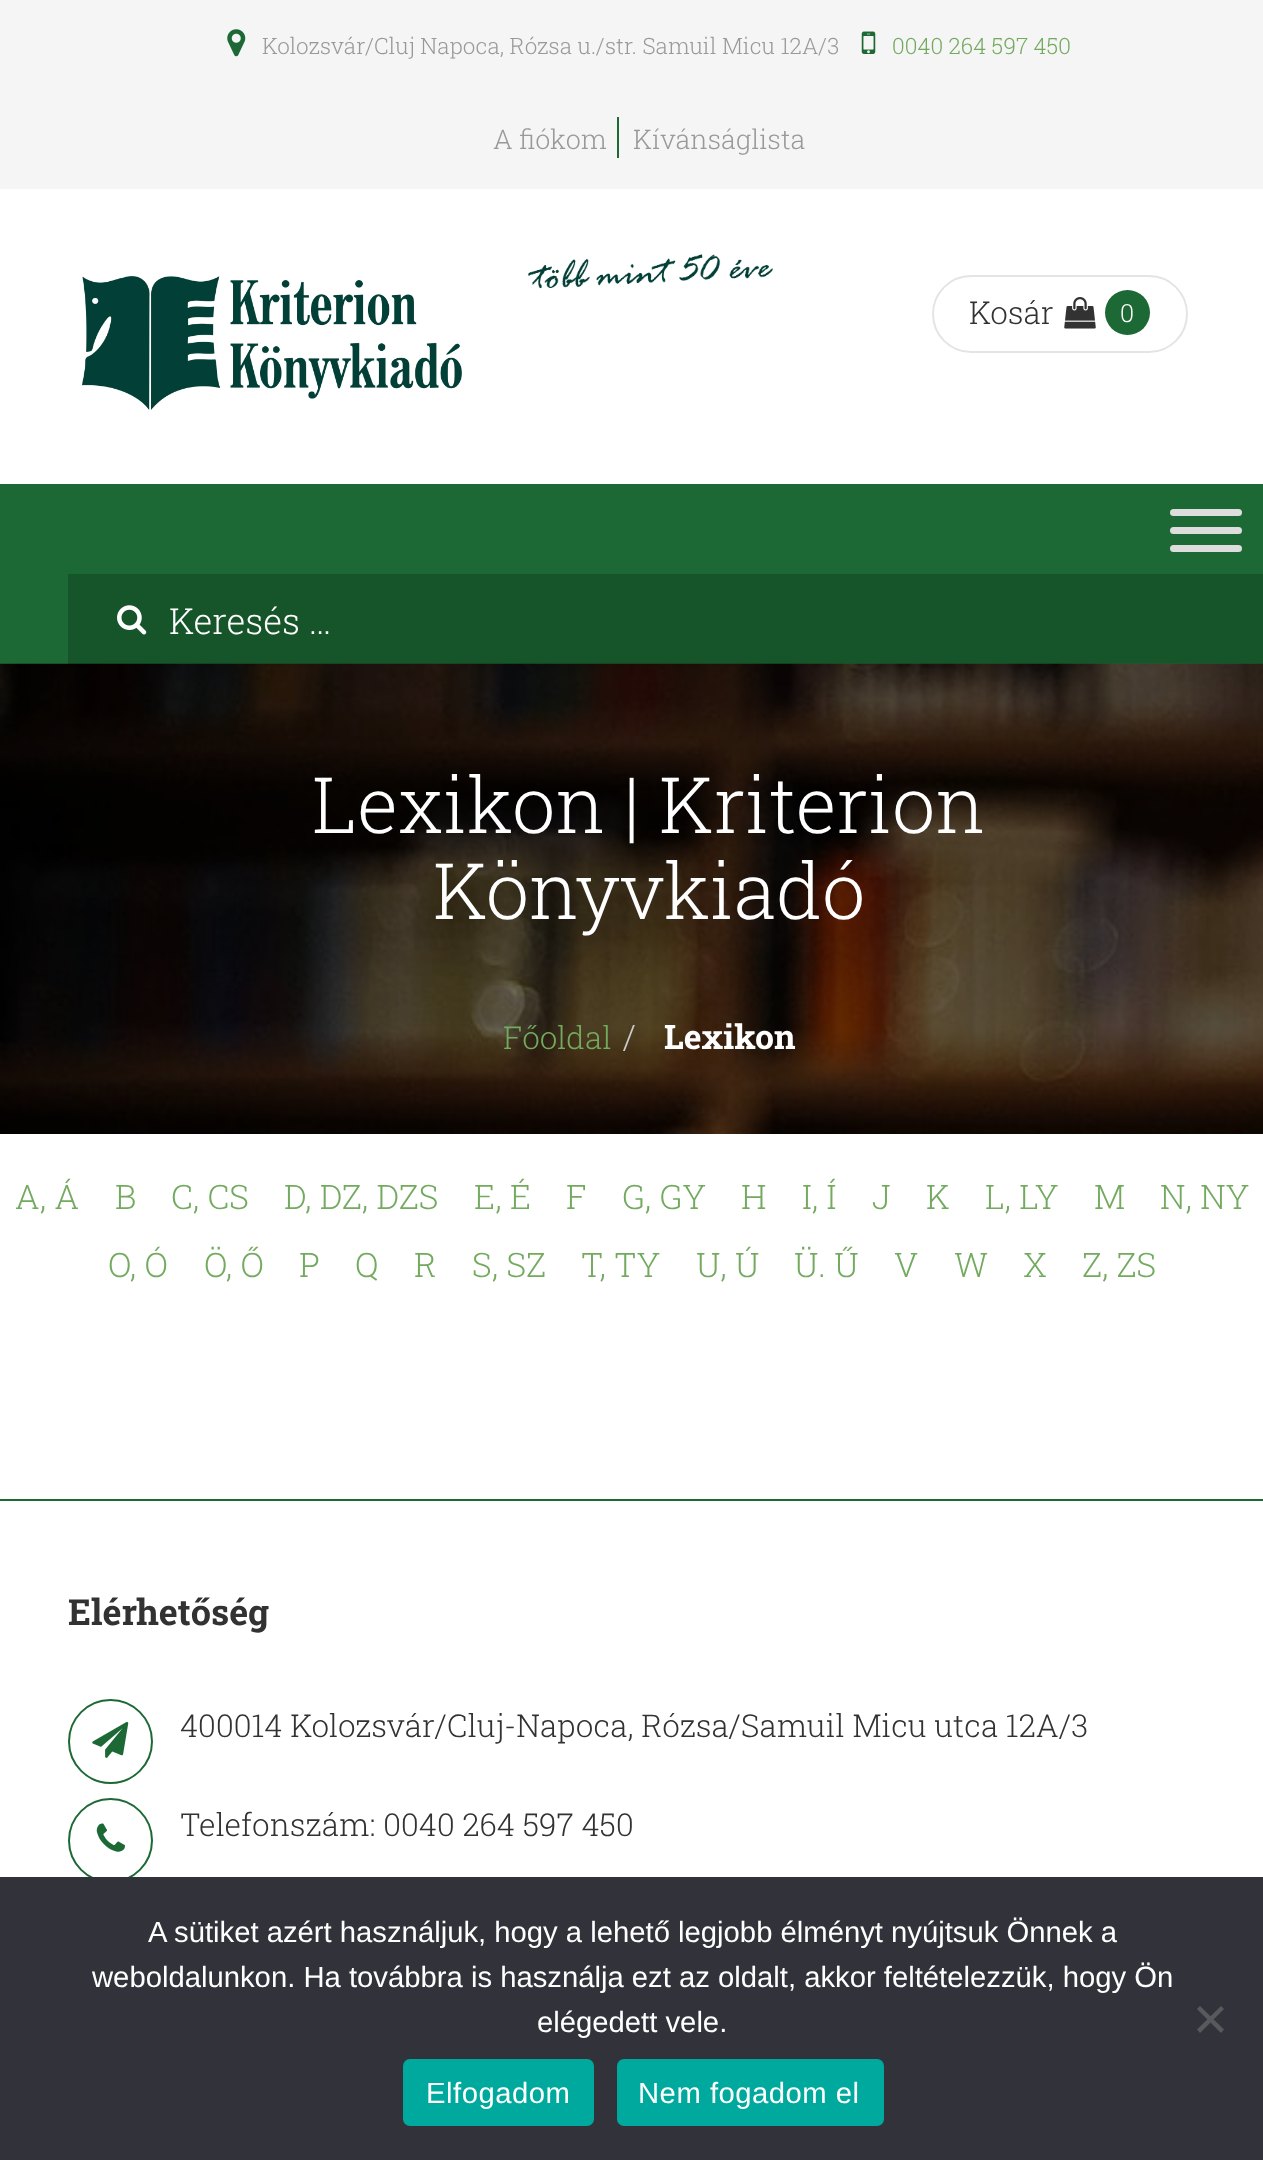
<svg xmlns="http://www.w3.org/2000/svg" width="1263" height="2160">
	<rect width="100%" height="100%" fill="#FFFFFF" />
	<rect x="0" y="0" width="1263" height="189" fill="#F5F5F5" />
	<image x="227" y="29" width="19" height="28" href="assets/img1.png" />
	<text x="262" y="54" font-family="Roboto Slab" font-size="22.5" font-weight="300" fill="#999999">Kolozsvár/Cluj Napoca, Rózsa u./str. Samuil Micu 12A/3</text>
	<image x="861" y="31" width="15" height="23" href="assets/img2.png" />
	<text x="892" y="54" font-family="Roboto Slab" font-size="22.5" font-weight="300" fill="#73AA5F">0040 264 597 450</text>
	<rect x="617" y="117" width="2" height="41" fill="#1C6935" />
	<g font-family="Roboto Slab" font-size="27" font-weight="300" fill="#999999">
		<text x="493" y="149">A fiókom</text>
		<text x="633" y="149">Kívánságlista</text>
	</g>
	<image x="527" y="254" width="246" height="35" href="assets/img3.png" />
	<image x="82" y="276" width="380" height="134" href="assets/img4.png" />
	<rect x="933" y="276" width="254" height="76" rx="38" fill="none" stroke="#E4E4E4" stroke-width="2" />
	<text x="969" y="324" font-family="Roboto Slab" font-size="31.5" font-weight="300" fill="#323232">Kosár</text>
	<image x="1064" y="297" width="32" height="32" href="assets/img5.png" />
	<circle cx="1127.5" cy="312.5" r="22.5" fill="#1C6935" />
	<text x="1120" y="322" font-family="Roboto Slab" font-size="25" font-weight="300" fill="#FFFFFF">0</text>
	<rect x="0" y="484" width="1263" height="180" fill="#1C6935" />
	<rect x="1170" y="509" width="72" height="7" rx="3.5" fill="#DDDDDD" />
	<rect x="1170" y="527" width="72" height="7" rx="3.5" fill="#DDDDDD" />
	<rect x="1170" y="545" width="72" height="7" rx="3.5" fill="#DDDDDD" />
	<image x="0" y="663" width="1263" height="471" href="assets/img7.png" />
	<rect x="68" y="574" width="1195" height="90" fill="#000000" fill-opacity="0.2" />
	<image x="117" y="605" width="30" height="30" href="assets/img6.png" />
	<text x="169" y="634" font-family="Roboto Slab" font-size="36" font-weight="300" fill="#FFFFFF">Keresés …</text>
	<g font-family="Roboto Slab" font-size="77.6" font-weight="300" fill="#FFFFFF">
		<text x="312" y="833">Lexikon | Kriterion</text>
		<text x="433" y="919">Könyvkiadó</text>
	</g>
	<text x="503" y="1049" font-family="Roboto Slab" font-size="31.5" font-weight="300" fill="#73AA5F">Főoldal</text>
	<text x="623" y="1049" font-family="Roboto Slab" font-size="33.75" font-weight="300" fill="#CCCCCC">/</text>
	<text x="664" y="1049" font-family="Roboto Slab" font-size="33.75" font-weight="700" fill="#FFFFFF">Lexikon</text>
	<g font-family="Roboto Slab" font-size="33.75" font-weight="300" fill="#73AA5F">
		<text x="15" y="1209">A, Á</text>
		<text x="115" y="1209">B</text>
		<text x="171" y="1209">C, CS</text>
		<text x="284" y="1209">D, DZ, DZS</text>
		<text x="474" y="1209">E, É</text>
		<text x="566" y="1209">F</text>
		<text x="622" y="1209">G, GY</text>
		<text x="741" y="1209">H</text>
		<text x="802" y="1209">I, Í</text>
		<text x="872" y="1209">J</text>
		<text x="926" y="1209">K</text>
		<text x="985" y="1209">L, LY</text>
		<text x="1094" y="1209">M</text>
		<text x="1160" y="1209">N, NY</text>
		<text x="108" y="1277">O, Ó</text>
		<text x="204" y="1277">Ö, Ő</text>
		<text x="299" y="1277">P</text>
		<text x="355" y="1277">Q</text>
		<text x="414" y="1277">R</text>
		<text x="472" y="1277">S, SZ</text>
		<text x="581" y="1277">T, TY</text>
		<text x="696" y="1277">U, Ú</text>
		<text x="794" y="1277">Ü. Ű</text>
		<text x="894" y="1277">V</text>
		<text x="954" y="1277">W</text>
		<text x="1023" y="1277">X</text>
		<text x="1082" y="1277">Z, ZS</text>
	</g>
	<rect x="0" y="1499" width="1263" height="2" fill="#1C6935" />
	<text x="68" y="1625" font-family="Roboto Slab" font-size="36" font-weight="700" fill="#323232">Elérhetőség</text>
	<circle cx="110.5" cy="1741.5" r="41.5" fill="none" stroke="#1C6935" stroke-width="2" />
	<image x="92" y="1721" width="37" height="37" href="assets/img8.png" />
	<text x="180" y="1737" font-family="Roboto Slab" font-size="31.5" font-weight="300" fill="#323232">400014 Kolozsvár/Cluj-Napoca, Rózsa/Samuil Micu utca 12A/3</text>
	<circle cx="110.5" cy="1840.5" r="41.5" fill="none" stroke="#1C6935" stroke-width="2" />
	<image x="96" y="1823" width="29" height="29" href="assets/img9.png" />
	<text x="180" y="1836" font-family="Roboto Slab" font-size="31.5" font-weight="300" fill="#323232">Telefonszám: 0040 264 597 450</text>
	<rect x="0" y="1877" width="1263" height="283" fill="#32323A" />
	<g font-family="Liberation Sans" font-size="29.25" fill="#FFFFFF">
		<text x="148" y="1942">A sütiket azért használjuk, hogy a lehető legjobb élményt nyújtsuk Önnek a</text>
		<text x="92" y="1987">weboldalunkon. Ha továbbra is használja ezt az oldalt, akkor feltételezzük, hogy Ön</text>
		<text x="537" y="2032">elégedett vele.</text>
	</g>
	<path d="M1221 2006L1224 2009L1200 2033L1197 2029.5Z" fill="#59595D" />
	<path d="M1197 2009L1200 2006L1224 2029.5L1221 2033Z" fill="#59595D" />
	<rect x="403" y="2059" width="191" height="67" rx="7" fill="#00A99D" />
	<text x="426" y="2103" font-family="Liberation Sans" font-size="29.25" letter-spacing="0.5" fill="#FFFFFF">Elfogadom</text>
	<rect x="617" y="2059" width="267" height="67" rx="7" fill="#00A99D" />
	<text x="638" y="2103" font-family="Liberation Sans" font-size="29.25" letter-spacing="0.5" fill="#FFFFFF">Nem fogadom el</text>
</svg>
